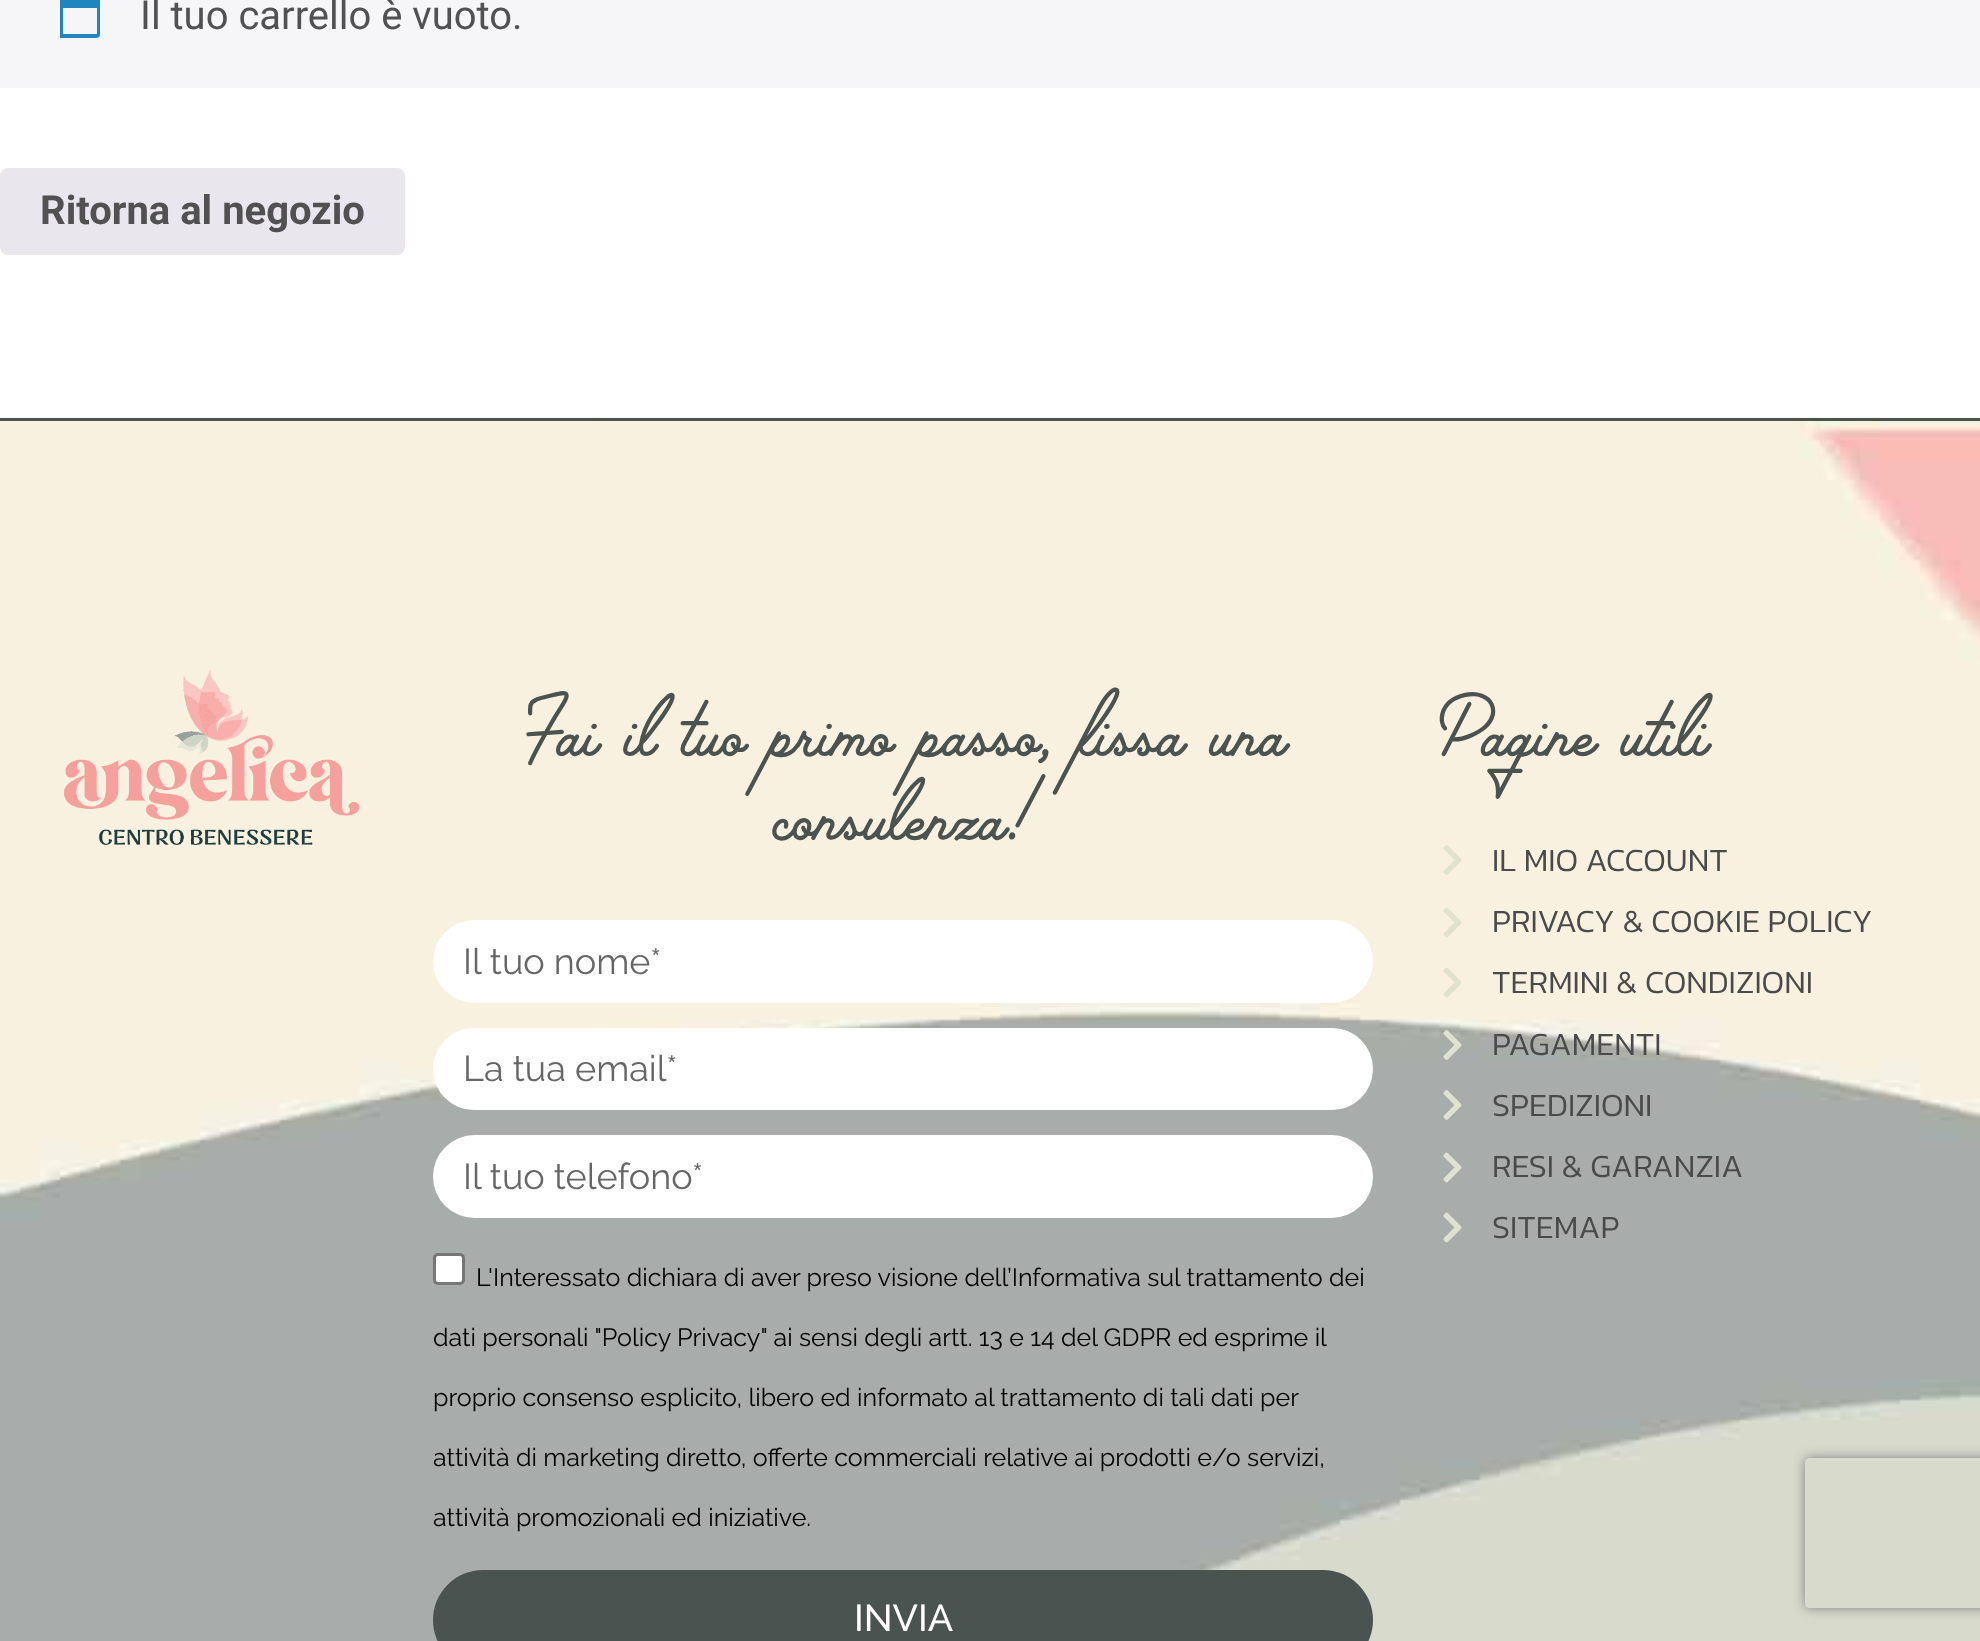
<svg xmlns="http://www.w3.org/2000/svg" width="1980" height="1641">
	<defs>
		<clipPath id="clip1"><path d="M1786 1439H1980V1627H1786ZM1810 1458H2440C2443 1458 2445 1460 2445 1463V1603C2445 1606 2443 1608 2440 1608H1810C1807 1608 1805 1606 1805 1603V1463C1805 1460 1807 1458 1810 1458Z" clip-rule="evenodd" /></clipPath>
	</defs>
	<rect width="100%" height="100%" fill="#FFFFFF" />
	<rect x="0" y="0" width="1980" height="88" fill="#F6F5F8" />
	<path d="M97 8H63V34H97ZM100-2V28C100 38 101 38 91 38H60V-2Z" fill="#1E85BE" />
	<text x="140" y="29" font-family="Roboto" font-size="40" fill="#515151">Il tuo carrello è vuoto.</text>
	<rect x="0" y="168" width="405" height="87" rx="8" fill="#E9E6ED" />
	<text x="40" y="224" font-family="Roboto" font-size="40" font-weight="700" fill="#515151">Ritorna al negozio</text>
	<image x="0" y="417" width="1980" height="1224" href="assets/img1.png" />
	<rect x="0" y="418" width="1980" height="3" fill="#4A5350" />
	<image x="63" y="670" width="297" height="175" href="assets/img2.png" />
	<g font-family="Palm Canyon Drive" font-size="84" fill="#4A5350">
		<text x="521" y="754">Fai il tuo primo passo, fissa una</text>
		<text x="773" y="838">consulenza!</text>
	</g>
	<rect x="433" y="920" width="940" height="83" rx="41.5" fill="#FFFFFF" />
	<text x="463" y="974" font-family="Raleway" font-size="36" fill="#666666">Il tuo nome*</text>
	<rect x="433" y="1028" width="940" height="82" rx="41" fill="#FFFFFF" />
	<text x="463" y="1081" font-family="Raleway" font-size="36" fill="#666666">La tua email*</text>
	<rect x="433" y="1135" width="940" height="83" rx="41.5" fill="#FFFFFF" />
	<text x="463" y="1189" font-family="Raleway" font-size="36" fill="#666666">Il tuo telefono*</text>
	<rect x="434.5" y="1254.5" width="29" height="29" rx="3.5" fill="#FFFFFF" stroke="#767676" stroke-width="3" />
	<g font-family="Raleway" font-size="25" fill="#000000">
		<text x="476" y="1286">L'Interessato dichiara di aver preso visione dell’Informativa sul trattamento dei</text>
		<text x="433" y="1346">dati personali "Policy Privacy" ai sensi degli artt. 13 e 14 del GDPR ed esprime il</text>
		<text x="433" y="1406">proprio consenso esplicito, libero ed informato al trattamento di tali dati per</text>
		<text x="433" y="1466">attività di marketing diretto, offerte commerciali relative ai prodotti e/o servizi,</text>
		<text x="433" y="1526">attività promozionali ed iniziative.</text>
	</g>
	<g clip-path="url(#clip1)">
		<rect x="1805" y="1458" width="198" height="150" rx="5" fill="#808080" filter="blur(6px)" />
	</g>
	<rect x="433" y="1570" width="940" height="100" rx="50" fill="#4A5350" />
	<text x="854" y="1631" font-family="Raleway" font-size="37.5" font-weight="500" fill="#FFFFFF">INVIA</text>
	<text x="1436" y="754" font-family="Palm Canyon Drive" font-size="84" fill="#4A5350">Pagine utili</text>
	<image x="1443" y="845" width="19" height="30" href="assets/img3.png" />
	<text x="1492" y="871" font-family="Kanit" font-size="32.5" font-weight="300" fill="#4A4A4A">IL MIO ACCOUNT</text>
	<image x="1443" y="907" width="19" height="31" href="assets/img4.png" />
	<text x="1492" y="932" font-family="Kanit" font-size="32.5" font-weight="300" fill="#4A4A4A">PRIVACY &amp; COOKIE POLICY</text>
	<image x="1443" y="967" width="19" height="31" href="assets/img4.png" />
	<text x="1492" y="993" font-family="Kanit" font-size="32.5" font-weight="300" fill="#4A4A4A">TERMINI &amp; CONDIZIONI</text>
	<image x="1443" y="1030" width="19" height="30" href="assets/img5.png" />
	<text x="1492" y="1055" font-family="Kanit" font-size="32.5" font-weight="300" fill="#4A4A4A">PAGAMENTI</text>
	<image x="1443" y="1090" width="19" height="30" href="assets/img6.png" />
	<text x="1492" y="1116" font-family="Kanit" font-size="32.5" font-weight="300" fill="#4A4A4A">SPEDIZIONI</text>
	<image x="1443" y="1152" width="19" height="31" href="assets/img7.png" />
	<text x="1492" y="1177" font-family="Kanit" font-size="32.5" font-weight="300" fill="#4A4A4A">RESI &amp; GARANZIA</text>
	<image x="1443" y="1212" width="19" height="31" href="assets/img7.png" />
	<text x="1492" y="1238" font-family="Kanit" font-size="32.5" font-weight="300" fill="#4A4A4A">SITEMAP</text>
</svg>
